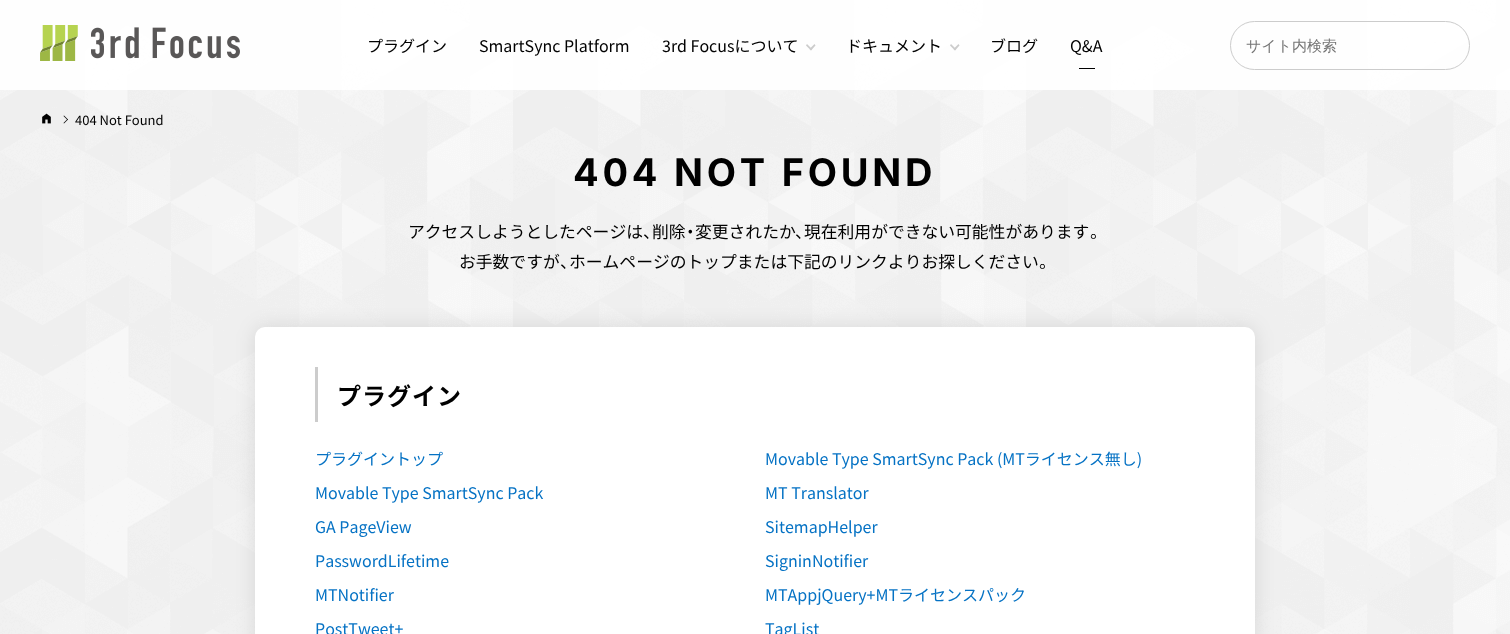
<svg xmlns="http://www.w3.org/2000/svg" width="1510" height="634">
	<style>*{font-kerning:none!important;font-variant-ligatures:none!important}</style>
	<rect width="100%" height="100%" fill="#FFFFFF" />
	<image x="0" y="0" width="1510" height="634" href="assets/img2.png" />
	<rect x="0" y="0" width="1510" height="90" fill="#FFFFFF" fill-opacity="0.9" />
	<image x="40" y="25" width="200" height="36" href="assets/img1.png" />
	<g font-family="Noto Sans JP" font-size="16" fill="#000000">
		<text x="367" y="52">プラグイン</text>
		<text x="479" y="52">SmartSync Platform</text>
		<text x="662" y="52">3rd Focusについて</text>
	</g>
	<path d="M814.5 44L815.5 45.5L811 50.5L809.5 49Z" fill="#CCCCCC" />
	<path d="M807 44L812 49L811 50.5L806 45.5Z" fill="#CCCCCC" />
	<text x="846" y="52" font-family="Noto Sans JP" font-size="16" fill="#000000">ドキュメント</text>
	<path d="M958.5 44L959.5 45.5L955 50.5L953.5 49Z" fill="#CCCCCC" />
	<path d="M951 44L956 49L955 50.5L950 45.5Z" fill="#CCCCCC" />
	<g font-family="Noto Sans JP" font-size="16" fill="#000000">
		<text x="990" y="52">ブログ</text>
		<text x="1070" y="52">Q&amp;A</text>
	</g>
	<rect x="1079" y="68" width="16" height="1" fill="#000000" />
	<rect x="1230.5" y="21.5" width="239" height="48" rx="24" fill="none" stroke="#CCCCCC" />
	<text x="1246" y="51" font-family="WenQuanYi Zen Hei" font-size="15" font-weight="500" fill="#757575">サイト内検索</text>
	<image x="42" y="113" width="9" height="11" href="assets/img3.png" />
	<path d="M64 115.5L68 119.5L67.5 120L63.5 116Z" fill="#000000" />
	<path d="M67.5 119L68 119.5L64 123.5L63.5 123Z" fill="#000000" />
	<text x="75" y="125" font-family="Noto Sans JP" font-size="13" fill="#000000">404 Not Found</text>
	<text x="573" y="186" font-family="Inter" font-size="38" font-weight="700" letter-spacing="3.75" fill="#000000">404 NOT FOUND</text>
	<g font-family="Noto Sans JP" font-size="16.8" fill="#000000">
		<text x="408" y="238">アクセスしようとしたページは</text>
		<text x="652" y="238">削除</text>
	</g>
	<text x="686" y="238" font-family="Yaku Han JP" font-size="16.8" fill="#000000">・</text>
	<g font-family="Noto Sans JP" font-size="16.8" fill="#000000">
		<text x="695" y="238">変更されたか</text>
		<text x="804" y="238">現在利用ができない可能性があります</text>
	</g>
	<g font-family="Yaku Han JP" font-size="16.8" fill="#000000">
		<text x="643" y="238">、</text>
		<text x="795" y="238">、</text>
		<text x="1090" y="238">。</text>
	</g>
	<text x="459" y="268" font-family="Noto Sans JP" font-size="16.8" fill="#000000">お手数ですが</text>
	<text x="560" y="268" font-family="Yaku Han JP" font-size="16.8" fill="#000000">、</text>
	<text x="569" y="268" font-family="Noto Sans JP" font-size="16.8" fill="#000000">ホームページのトップまたは下記のリンクよりお探しください</text>
	<text x="1039" y="268" font-family="Yaku Han JP" font-size="16.8" fill="#000000">。</text>
	<rect x="255" y="327" width="1000" height="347" rx="10" fill="#000000" fill-opacity="0.1" filter="blur(10px)" />
	<rect x="255" y="327" width="1000" height="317" rx="10" fill="#FFFFFF" />
	<rect x="315" y="367" width="3" height="55" fill="#CCCCCC" />
	<text x="337" y="405" font-family="Noto Sans JP" font-size="24" font-weight="700" letter-spacing="1" fill="#000000">プラグイン</text>
	<g font-family="Noto Sans JP" font-size="16" fill="#0572C4">
		<text x="315" y="465">プラグイントップ</text>
		<text x="765" y="465">Movable Type SmartSync Pack (MTライセンス無し)</text>
		<text x="315" y="499">Movable Type SmartSync Pack</text>
		<text x="765" y="499">MT Translator</text>
		<text x="315" y="533">GA PageView</text>
		<text x="765" y="533">SitemapHelper</text>
		<text x="315" y="567">PasswordLifetime</text>
		<text x="765" y="567">SigninNotifier</text>
		<text x="315" y="601">MTNotifier</text>
		<text x="765" y="601">MTAppjQuery+MTライセンスパック</text>
		<text x="315" y="635">PostTweet+</text>
		<text x="765" y="635">TagList</text>
	</g>
</svg>
